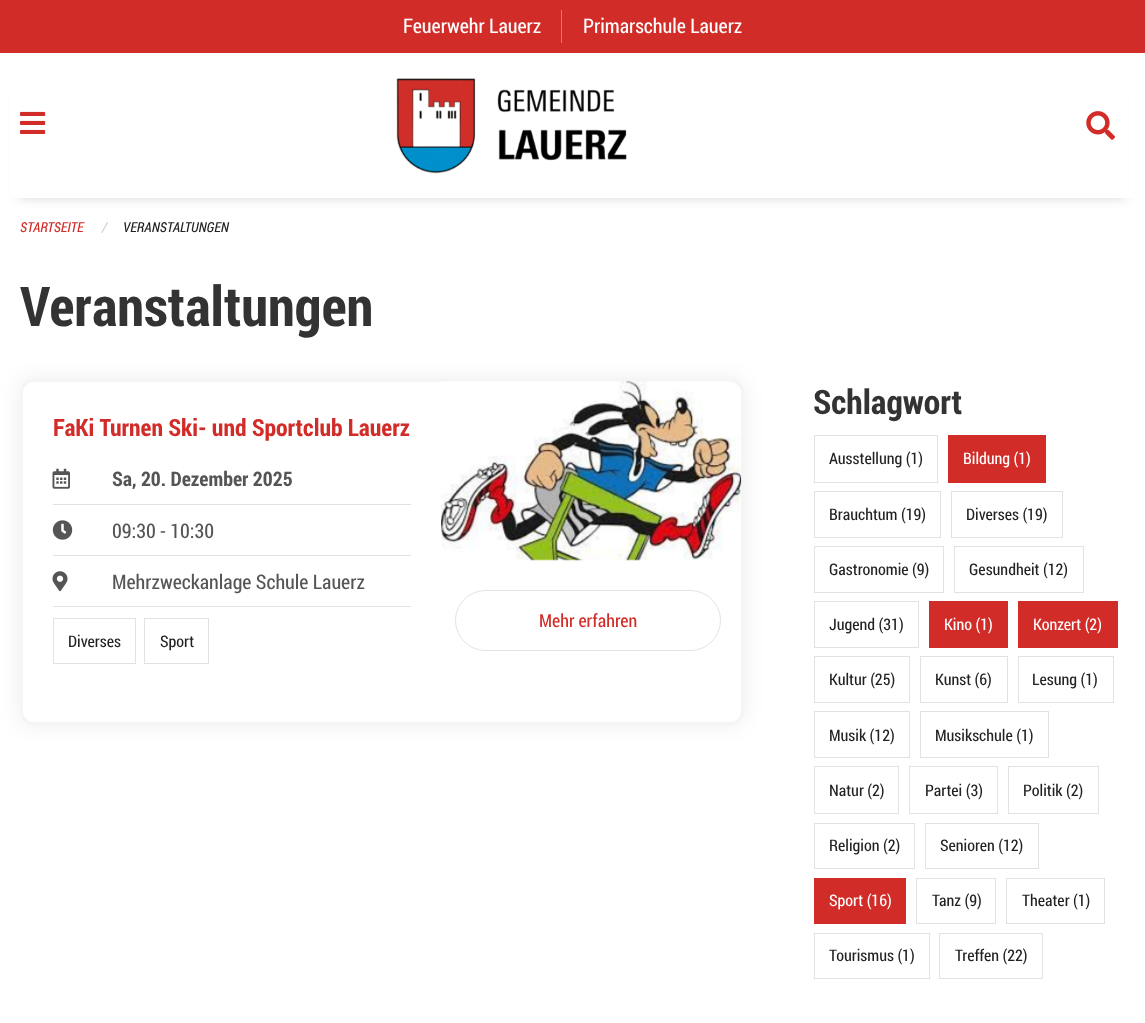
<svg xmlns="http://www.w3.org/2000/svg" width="1145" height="1023">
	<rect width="100%" height="100%" fill="#FFFFFF" />
	<rect x="0" y="0" width="1145" height="53" fill="#D22C28" />
	<text x="403" y="33" font-family="Roboto Condensed" font-size="20" fill="#FFFFFF">Feuerwehr Lauerz</text>
	<rect x="561" y="10" width="1" height="33" fill="#C9817F" />
	<text x="583" y="33" font-family="Roboto Condensed" font-size="20" fill="#FFFFFF">Primarschule Lauerz</text>
	<rect x="19" y="90" width="1107" height="108" fill="#000000" fill-opacity="0.15" filter="blur(6px)" />
	<rect x="10" y="81" width="1125" height="117" fill="#FFFFFF" />
	<image x="20" y="111" width="26" height="23" href="assets/img1.png" />
	<image x="396" y="78" width="231" height="96" href="assets/img2.png" />
	<image x="1086" y="111" width="29" height="29" href="assets/img3.png" />
	<text x="20" y="232" font-family="Roboto Condensed" font-size="13.75" font-style="italic" fill="#D22C28">STARTSEITE</text>
	<text x="102" y="232" font-family="Roboto" font-size="13.75" font-style="italic" fill="#CACACA">/</text>
	<text x="123" y="232" font-family="Roboto Condensed" font-size="13.75" font-style="italic" fill="#222222">VERANSTALTUNGEN</text>
	<text x="20" y="326" font-family="Roboto Condensed" font-size="55" font-weight="700" fill="#333333">Veranstaltungen</text>
	<rect x="20" y="379" width="724" height="346" rx="14" fill="#000000" fill-opacity="0.07" filter="blur(10.5px)" />
	<rect x="21.5" y="380.5" width="721" height="343" rx="12.5" fill="#FFFFFF" stroke="#F5F5F5" stroke-width="3" />
	<text x="53" y="436" font-family="Roboto Condensed" font-size="23.75" font-weight="700" fill="#D22C28">FaKi Turnen Ski- und Sportclub Lauerz</text>
	<image x="52" y="468" width="18" height="21" href="assets/img4.png" />
	<text x="112" y="486" font-family="Roboto Condensed" font-size="20" font-weight="700" fill="#555555">Sa, 20. Dezember 2025</text>
	<rect x="53" y="504" width="358" height="1" fill="#E0E3E5" />
	<image x="52" y="520" width="21" height="20" href="assets/img5.png" />
	<text x="112" y="538" font-family="Roboto Condensed" font-size="20" fill="#555555">09:30 - 10:30</text>
	<rect x="53" y="555" width="358" height="1" fill="#E0E3E5" />
	<image x="52" y="571" width="16" height="21" href="assets/img6.png" />
	<text x="112" y="589" font-family="Roboto Condensed" font-size="20" fill="#555555">Mehrzweckanlage Schule Lauerz</text>
	<rect x="53" y="606" width="358" height="1" fill="#E0E3E5" />
	<rect x="53.5" y="618.5" width="82" height="45" fill="none" stroke="#E0E3E5" />
	<text x="68" y="647" font-family="Roboto Condensed" font-size="16" fill="#222222">Diverses</text>
	<rect x="144.5" y="618.5" width="64" height="45" fill="none" stroke="#E0E3E5" />
	<text x="160" y="647" font-family="Roboto Condensed" font-size="16" fill="#222222">Sport</text>
	<image x="441" y="381" width="301" height="180" href="assets/img7.png" />
	<rect x="455.5" y="590.5" width="265" height="60" rx="30" fill="none" stroke="#E0E3E5" />
	<text x="539" y="627" font-family="Roboto Condensed" font-size="18" fill="#D22C28">Mehr erfahren</text>
	<text x="813" y="414" font-family="Roboto Condensed" font-size="33.75" font-weight="700" fill="#333333">Schlagwort</text>
	<rect x="814.5" y="435.5" width="123" height="47" fill="none" stroke="#E0E3E5" />
	<text x="829" y="464" font-family="Roboto Condensed" font-size="16" fill="#222222">Ausstellung (1)</text>
	<rect x="948" y="435" width="98" height="48" fill="#D22C28" />
	<text x="963" y="464" font-family="Roboto Condensed" font-size="16" fill="#FFFFFF">Bildung (1)</text>
	<rect x="814.5" y="491.5" width="126" height="46" fill="none" stroke="#E0E3E5" />
	<text x="829" y="520" font-family="Roboto Condensed" font-size="16" fill="#222222">Brauchtum (19)</text>
	<rect x="951.5" y="491.5" width="111" height="46" fill="none" stroke="#E0E3E5" />
	<text x="966" y="520" font-family="Roboto Condensed" font-size="16" fill="#222222">Diverses (19)</text>
	<rect x="814.5" y="546.5" width="129" height="46" fill="none" stroke="#E0E3E5" />
	<text x="829" y="575" font-family="Roboto Condensed" font-size="16" fill="#222222">Gastronomie (9)</text>
	<rect x="954.5" y="546.5" width="129" height="46" fill="none" stroke="#E0E3E5" />
	<text x="969" y="575" font-family="Roboto Condensed" font-size="16" fill="#222222">Gesundheit (12)</text>
	<rect x="814.5" y="601.5" width="104" height="46" fill="none" stroke="#E0E3E5" />
	<text x="829" y="630" font-family="Roboto Condensed" font-size="16" fill="#222222">Jugend (31)</text>
	<rect x="929" y="601" width="79" height="47" fill="#D22C28" />
	<text x="944" y="630" font-family="Roboto Condensed" font-size="16" fill="#FFFFFF">Kino (1)</text>
	<rect x="1018" y="601" width="100" height="47" fill="#D22C28" />
	<text x="1033" y="630" font-family="Roboto Condensed" font-size="16" fill="#FFFFFF">Konzert (2)</text>
	<rect x="814.5" y="656.5" width="95" height="46" fill="none" stroke="#E0E3E5" />
	<text x="829" y="685" font-family="Roboto Condensed" font-size="16" fill="#222222">Kultur (25)</text>
	<rect x="920.5" y="656.5" width="87" height="46" fill="none" stroke="#E0E3E5" />
	<text x="935" y="685" font-family="Roboto Condensed" font-size="16" fill="#222222">Kunst (6)</text>
	<rect x="1018.5" y="656.5" width="95" height="46" fill="none" stroke="#E0E3E5" />
	<text x="1032" y="685" font-family="Roboto Condensed" font-size="16" fill="#222222">Lesung (1)</text>
	<rect x="814.5" y="711.5" width="95" height="46" fill="none" stroke="#E0E3E5" />
	<text x="829" y="741" font-family="Roboto Condensed" font-size="16" fill="#222222">Musik (12)</text>
	<rect x="920.5" y="711.5" width="128" height="46" fill="none" stroke="#E0E3E5" />
	<text x="935" y="741" font-family="Roboto Condensed" font-size="16" fill="#222222">Musikschule (1)</text>
	<rect x="814.5" y="766.5" width="84" height="47" fill="none" stroke="#E0E3E5" />
	<text x="829" y="796" font-family="Roboto Condensed" font-size="16" fill="#222222">Natur (2)</text>
	<rect x="909.5" y="766.5" width="88" height="47" fill="none" stroke="#E0E3E5" />
	<text x="925" y="796" font-family="Roboto Condensed" font-size="16" fill="#222222">Partei (3)</text>
	<rect x="1008.5" y="766.5" width="90" height="47" fill="none" stroke="#E0E3E5" />
	<text x="1023" y="796" font-family="Roboto Condensed" font-size="16" fill="#222222">Politik (2)</text>
	<rect x="814.5" y="823.5" width="100" height="45" fill="none" stroke="#E0E3E5" />
	<text x="829" y="851" font-family="Roboto Condensed" font-size="16" fill="#222222">Religion (2)</text>
	<rect x="925.5" y="823.5" width="113" height="45" fill="none" stroke="#E0E3E5" />
	<text x="940" y="851" font-family="Roboto Condensed" font-size="16" fill="#222222">Senioren (12)</text>
	<rect x="814" y="878" width="92" height="46" fill="#D22C28" />
	<text x="829" y="906" font-family="Roboto Condensed" font-size="16" fill="#FFFFFF">Sport (16)</text>
	<rect x="916.5" y="878.5" width="79" height="45" fill="none" stroke="#E0E3E5" />
	<text x="932" y="906" font-family="Roboto Condensed" font-size="16" fill="#222222">Tanz (9)</text>
	<rect x="1006.5" y="878.5" width="98" height="45" fill="none" stroke="#E0E3E5" />
	<text x="1022" y="906" font-family="Roboto Condensed" font-size="16" fill="#222222">Theater (1)</text>
	<rect x="814.5" y="933.5" width="115" height="45" fill="none" stroke="#E0E3E5" />
	<text x="829" y="961" font-family="Roboto Condensed" font-size="16" fill="#222222">Tourismus (1)</text>
	<rect x="939.5" y="933.5" width="103" height="45" fill="none" stroke="#E0E3E5" />
	<text x="955" y="961" font-family="Roboto Condensed" font-size="16" fill="#222222">Treffen (22)</text>
</svg>
